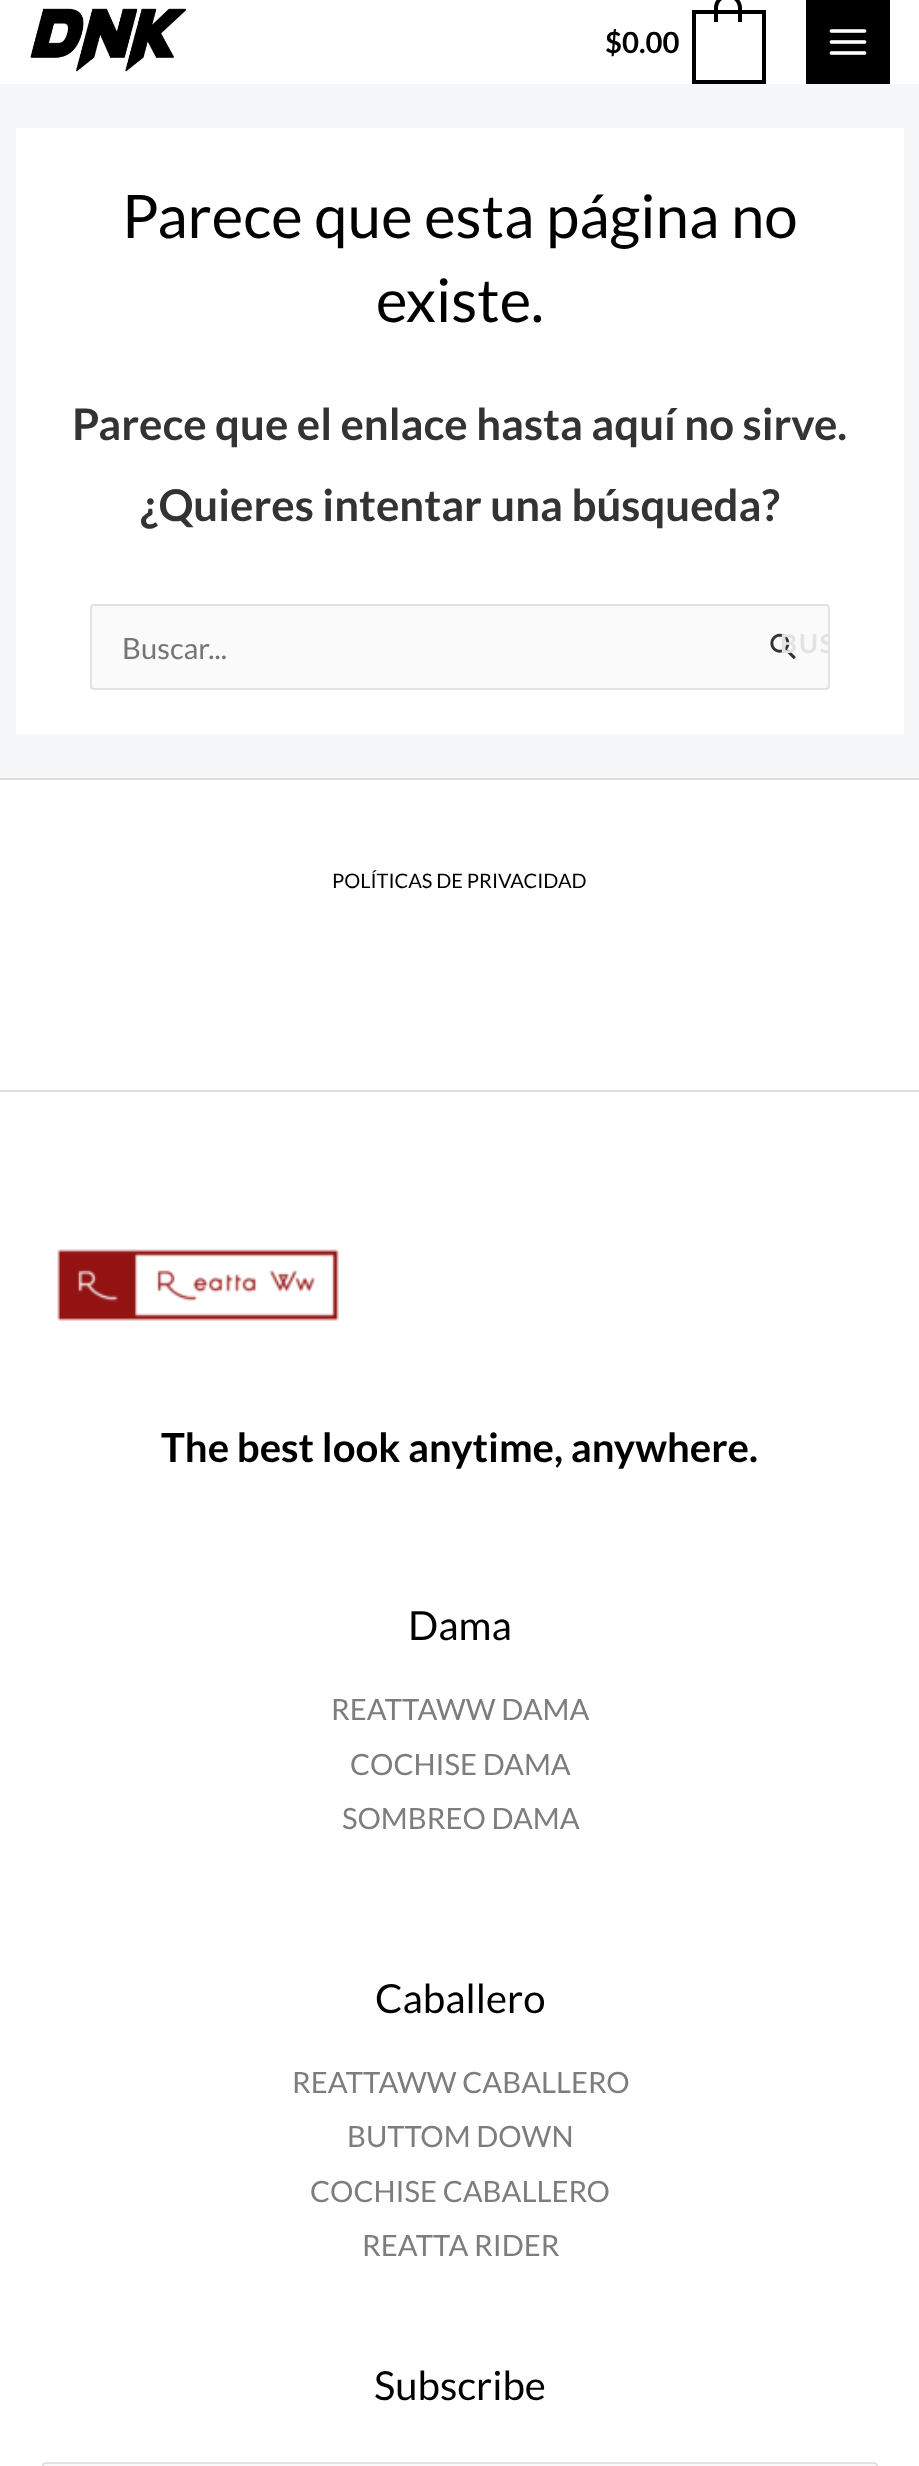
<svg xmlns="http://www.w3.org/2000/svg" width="919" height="2466">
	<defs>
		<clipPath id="clip1"><rect x="740" y="604" width="90" height="78" rx="4" /></clipPath>
	</defs>
	<rect width="100%" height="100%" fill="#F5F7F9" />
	<rect x="0" y="0" width="919" height="84" fill="#FFFFFF" />
	<image x="30" y="8" width="157" height="64" href="assets/img1.png" />
	<text x="605" y="53" font-family="Lato" font-size="29.25" font-weight="700" fill="#000000">$0.00</text>
	<rect x="694" y="12" width="70" height="70" fill="none" stroke="#000000" stroke-width="4" />
	<path d="M728-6C735.5-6 742 .5 742 8V22H714V8C714 .5 720-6 728-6ZM728-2C733.5-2 738 2.5 738 8V22H718V8C718 2.5 722.5-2 728-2Z" fill="#000000" fill-rule="evenodd" />
	<rect x="806" y="0" width="84" height="84" fill="#000000" />
	<image x="829" y="29" width="38" height="26" href="assets/img2.png" />
	<rect x="16" y="128" width="888" height="606" fill="#FFFFFF" />
	<g font-family="Lato" font-size="60" fill="#000000">
		<text x="122" y="238">Parece que esta página no</text>
		<text x="376" y="322">existe.</text>
	</g>
	<g font-family="Lato" font-size="43.75" font-weight="700" fill="#333333">
		<text x="72" y="440">Parece que el enlace hasta aquí no sirve.</text>
		<text x="140" y="521">¿Quieres intentar una búsqueda?</text>
	</g>
	<rect x="91" y="605" width="738" height="84" rx="3" fill="#FAFAFA" stroke="#E2E2E2" stroke-width="2" />
	<image x="770" y="633" width="26" height="27" href="assets/img3.png" />
	<text x="122" y="659" font-family="Lato" font-size="29.25" fill="#757575">Buscar...</text>
	<g clip-path="url(#clip1)">
		<text x="780" y="653" font-family="Lato" font-size="26" font-weight="700" letter-spacing="2" fill="#E3E3E3">BUS</text>
	</g>
	<rect x="0" y="780" width="919" height="1686" fill="#FFFFFF" />
	<rect x="0" y="778" width="919" height="2" fill="#DDDDDD" />
	<text x="332" y="888" font-family="Lato" font-size="20" fill="#000000">POLÍTICAS DE PRIVACIDAD</text>
	<rect x="0" y="1090" width="919" height="2" fill="#DDDDDD" />
	<image x="57" y="1249" width="282" height="72" href="assets/img4.png" />
	<text x="161" y="1462" font-family="Lato" font-size="40.1" font-weight="700" fill="#000000">The best look anytime, anywhere.</text>
	<text x="408" y="1640" font-family="Lato" font-size="40.1" fill="#000000">Dama</text>
	<g font-family="Lato" font-size="29.25" fill="#7D7D7D">
		<text x="331" y="1720">REATTAWW DAMA</text>
		<text x="350" y="1775">COCHISE DAMA</text>
		<text x="342" y="1829">SOMBREO DAMA</text>
	</g>
	<text x="375" y="2013" font-family="Lato" font-size="40.1" fill="#000000">Caballero</text>
	<g font-family="Lato" font-size="29.25" fill="#7D7D7D">
		<text x="292" y="2093">REATTAWW CABALLERO</text>
		<text x="347" y="2147">BUTTOM DOWN</text>
		<text x="310" y="2202">COCHISE CABALLERO</text>
		<text x="362" y="2256">REATTA RIDER</text>
	</g>
	<text x="374" y="2400" font-family="Lato" font-size="40.1" fill="#000000">Subscribe</text>
	<rect x="43" y="2463" width="834" height="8" rx="3" fill="#FAFAFA" stroke="#E2E2E2" stroke-width="2" />
</svg>
